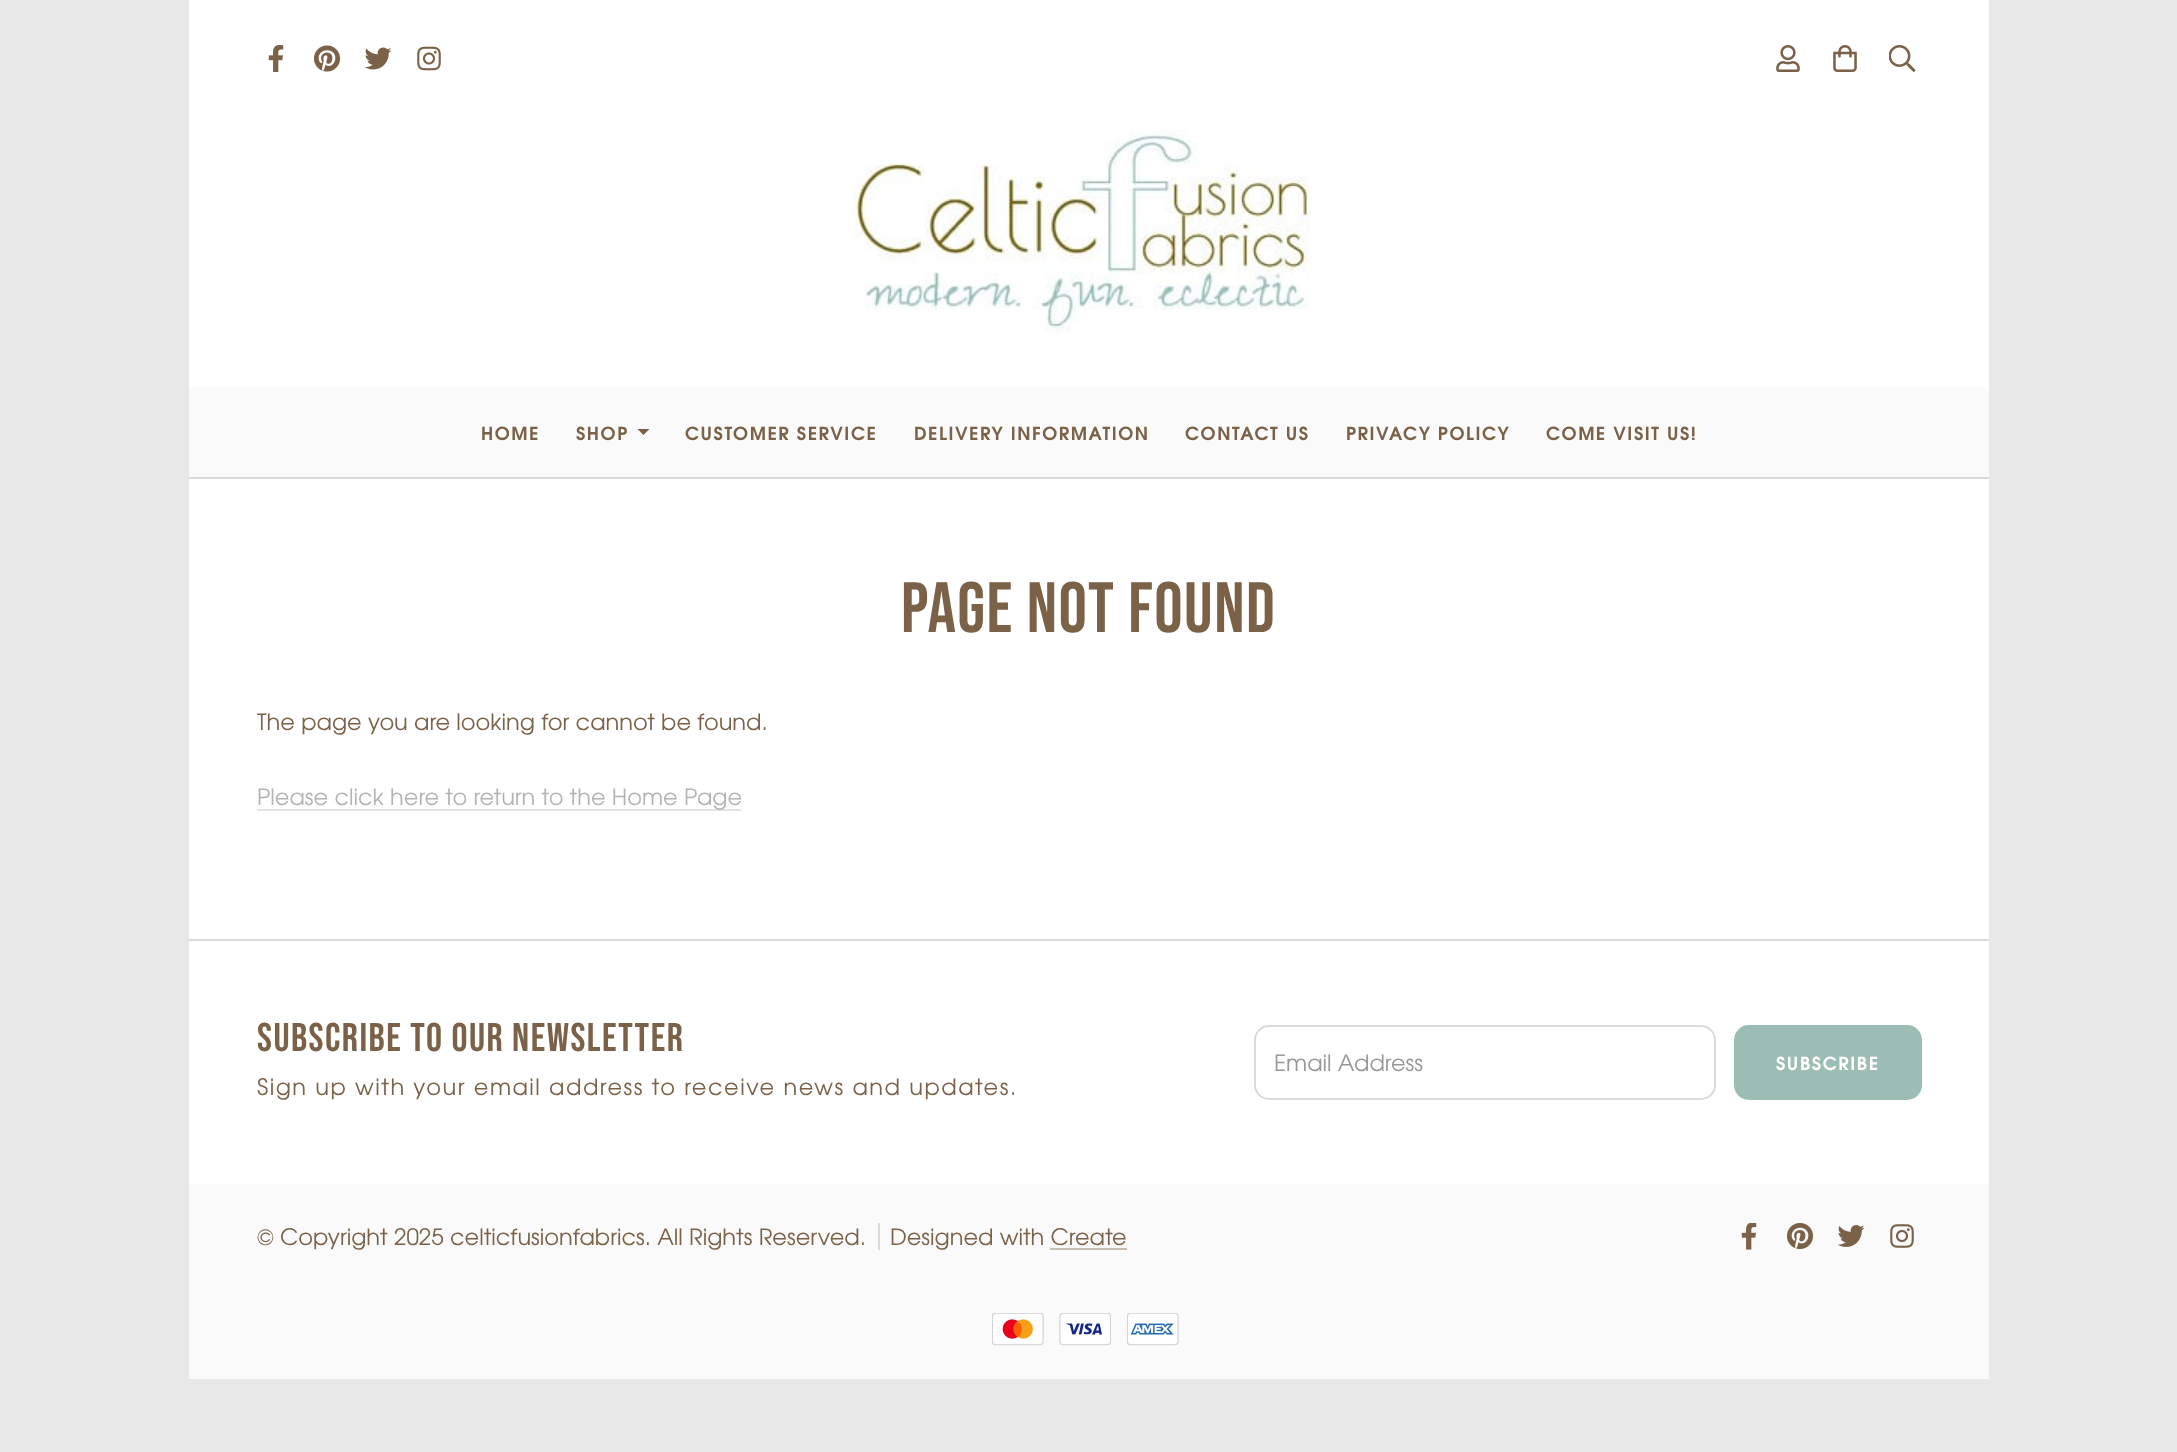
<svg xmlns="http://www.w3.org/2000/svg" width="2177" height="1452">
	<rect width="100%" height="100%" fill="#E8E8E8" />
	<rect x="189" y="0" width="1800" height="387" fill="#FFFFFF" />
	<rect x="189" y="477" width="1800" height="2" fill="#DADADA" />
	<image x="268" y="45" width="16" height="27" href="assets/img1.png" />
	<image x="314" y="45" width="27" height="27" href="assets/img2.png" />
	<image x="365" y="47" width="27" height="23" href="assets/img3.png" />
	<image x="417" y="46" width="24" height="25" href="assets/img4.png" />
	<image x="1776" y="45" width="24" height="27" href="assets/img5.png" />
	<image x="1833" y="45" width="24" height="27" href="assets/img6.png" />
	<image x="1889" y="45" width="27" height="27" href="assets/img7.png" />
	<image x="853" y="130" width="457" height="203" href="assets/img8.png" />
	<rect x="189" y="387" width="1800" height="90" fill="#FAFAFA" />
	<g font-family="TeX Gyre Adventor" font-size="18" font-weight="700" letter-spacing="1.5" fill="#7A6147">
		<text x="481" y="440">HOME</text>
		<text x="576" y="440">SHOP</text>
	</g>
	<path d="M637.5 429H649.5L643.5 435Z" fill="#7A6147" />
	<g font-family="TeX Gyre Adventor" font-size="18" font-weight="700" letter-spacing="1.5" fill="#7A6147">
		<text x="685" y="440">CUSTOMER SERVICE</text>
		<text x="914" y="440">DELIVERY INFORMATION</text>
		<text x="1185" y="440">CONTACT US</text>
		<text x="1346" y="440">PRIVACY POLICY</text>
		<text x="1546" y="440">COME VISIT US!</text>
	</g>
	<rect x="189" y="479" width="1800" height="460" fill="#FFFFFF" />
	<text x="901" y="632" font-family="Bebas Neue" font-size="71" letter-spacing="1.5" fill="#7A6147">Page Not Found</text>
	<text x="257" y="730" font-family="TeX Gyre Adventor" font-size="22.5" fill="#7A6147">The page you are looking for cannot be found.</text>
	<rect x="257" y="809" width="484" height="2" fill="#E1E1E1" />
	<text x="257" y="805" font-family="TeX Gyre Adventor" font-size="22.5" fill="#B3B3B3">Please click here to return to the Home Page</text>
	<rect x="189" y="941" width="1800" height="243" fill="#FFFFFF" />
	<rect x="189" y="939" width="1800" height="2" fill="#DADADA" />
	<text x="257" y="1051" font-family="Bebas Neue" font-size="40" letter-spacing="1.5" fill="#7A6147">Subscribe to our newsletter</text>
	<text x="257" y="1095" font-family="TeX Gyre Adventor" font-size="22.5" letter-spacing="1.5" fill="#7A6147">Sign up with your email address to receive news and updates.</text>
	<rect x="1255" y="1026" width="460" height="73" rx="14" fill="none" stroke="#DADADA" stroke-width="2" />
	<text x="1274" y="1071" font-family="TeX Gyre Adventor" font-size="22.5" fill="#989898">Email Address</text>
	<rect x="1735.5" y="1026.5" width="185" height="72" rx="13.5" fill="#9BBDB4" stroke="#9BBDB4" stroke-width="3" />
	<text x="1776" y="1070" font-family="TeX Gyre Adventor" font-size="18" font-weight="700" letter-spacing="1.5" fill="#FFFFFF">SUBSCRIBE</text>
	<rect x="189" y="1184" width="1800" height="195" fill="#FAFAFA" />
	<text x="257" y="1245" font-family="TeX Gyre Adventor" font-size="22.5" fill="#7A6147">© Copyright 2025 celticfusionfabrics. All Rights Reserved.</text>
	<rect x="878" y="1223" width="2" height="27" fill="#DADADA" />
	<text x="890" y="1245" font-family="TeX Gyre Adventor" font-size="22.5" fill="#7A6147">Designed with Create</text>
	<rect x="1050" y="1248" width="77" height="2" fill="#C7BDB2" />
	<image x="1741" y="1223" width="16" height="27" href="assets/img9.png" />
	<image x="1787" y="1223" width="27" height="27" href="assets/img10.png" />
	<image x="1838" y="1225" width="27" height="22" href="assets/img11.png" />
	<image x="1890" y="1224" width="24" height="24" href="assets/img12.png" />
	<image x="992" y="1313" width="52" height="33" href="assets/img13.png" />
	<image x="1059" y="1313" width="52" height="33" href="assets/img14.png" />
	<image x="1127" y="1313" width="52" height="33" href="assets/img15.png" />
</svg>
